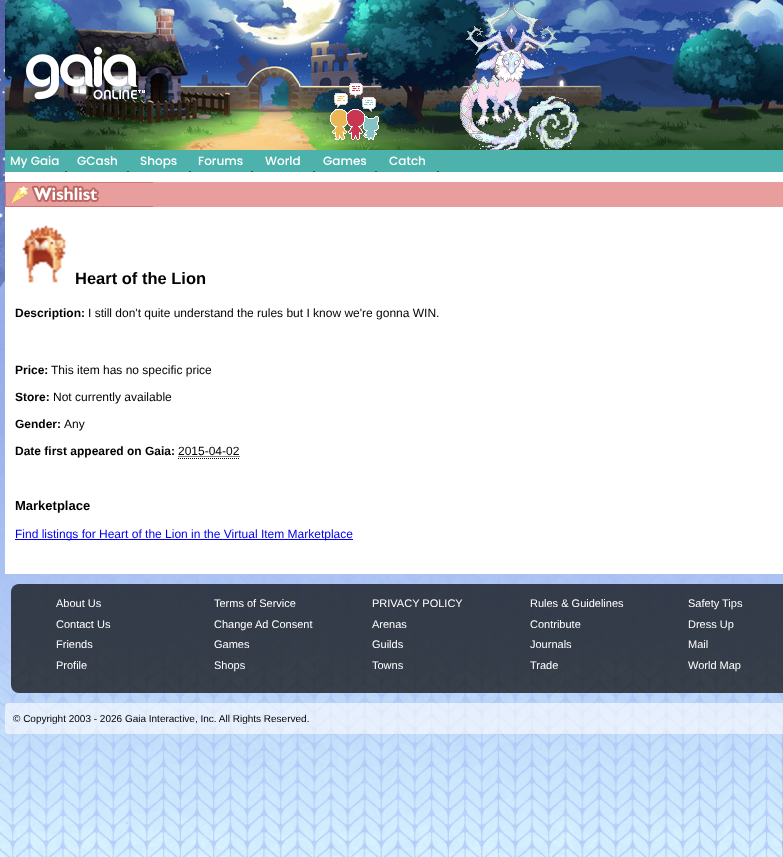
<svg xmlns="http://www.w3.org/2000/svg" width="783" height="857">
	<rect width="100%" height="100%" fill="#FFFFFF" />
	<image x="782" y="574" width="1" height="283" href="assets/img1.png" />
	<image x="0" y="0" width="783" height="857" href="assets/img2.png" />
	<image x="5" y="0" width="778" height="150" href="assets/img3.png" />
	<image x="26" y="46" width="119" height="54" href="assets/img4.png" />
	<image x="460" y="2" width="119" height="148" href="assets/img5.png" />
	<image x="330" y="83" width="49" height="57" href="assets/img6.png" />
	<rect x="5" y="150" width="778" height="22" fill="#4DB1AC" />
	<g font-family="Poppins" font-size="12" font-weight="500" fill="#FFFFFF">
		<text x="10" y="165">My Gaia</text>
		<text x="77" y="165">GCash</text>
		<text x="140" y="165">Shops</text>
		<text x="198" y="165">Forums</text>
		<text x="265" y="165">World</text>
		<text x="323" y="165">Games</text>
		<text x="389" y="165">Catch</text>
	</g>
	<rect x="65" y="171" width="2" height="1" fill="#265F62" />
	<rect x="127" y="171" width="2" height="1" fill="#265F62" />
	<rect x="189" y="171" width="2" height="1" fill="#265F62" />
	<rect x="251" y="171" width="2" height="1" fill="#265F62" />
	<rect x="313" y="171" width="2" height="1" fill="#265F62" />
	<rect x="375" y="171" width="2" height="1" fill="#265F62" />
	<rect x="437" y="171" width="2" height="1" fill="#265F62" />
	<rect x="5" y="172" width="778" height="402" fill="#FFFFFF" />
	<rect x="153" y="182" width="630" height="25" fill="#E79E9C" />
	<image x="5" y="182" width="148" height="25" href="assets/img7.png" />
	<image x="22" y="225" width="44" height="58" href="assets/img8.png" />
	<text x="75" y="284" font-family="Liberation Sans" font-size="16.5" font-weight="700" fill="#000000">Heart of the Lion</text>
	<text x="15" y="317" font-family="Liberation Sans" font-size="12" font-weight="700" fill="#000000">Description:</text>
	<text x="88" y="317" font-family="Liberation Sans" font-size="12" fill="#000000">I still don't quite understand the rules but I know we're gonna WIN.</text>
	<text x="15" y="374" font-family="Liberation Sans" font-size="12" font-weight="700" fill="#000000">Price:</text>
	<text x="51" y="374" font-family="Liberation Sans" font-size="12" fill="#000000">This item has no specific price</text>
	<text x="15" y="401" font-family="Liberation Sans" font-size="12" font-weight="700" fill="#000000">Store:</text>
	<text x="53" y="401" font-family="Liberation Sans" font-size="12" fill="#000000">Not currently available</text>
	<text x="15" y="428" font-family="Liberation Sans" font-size="12" font-weight="700" fill="#000000">Gender:</text>
	<text x="64" y="428" font-family="Liberation Sans" font-size="12" fill="#000000">Any</text>
	<text x="15" y="455" font-family="Liberation Sans" font-size="12" font-weight="700" fill="#000000">Date first appeared on Gaia:</text>
	<text x="178" y="455" font-family="Liberation Sans" font-size="12" fill="#000000">2015-04-02</text>
	<path d="M178 458.5H240M178.5 456.5H240" fill="none" stroke="#000000" stroke-dasharray="1 1" />
	<text x="15" y="510" font-family="Liberation Sans" font-size="13" font-weight="700" fill="#000000">Marketplace</text>
	<rect x="15" y="539" width="338" height="1" fill="#0000EE" />
	<text x="15" y="538" font-family="Liberation Sans" font-size="12" fill="#0000EE">Find listings for Heart of the Lion in the Virtual Item Marketplace</text>
	<rect x="11" y="584" width="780" height="109" rx="8" fill="#000000" fill-opacity="0.7" />
	<g font-family="Liberation Sans" font-size="11" fill="#FFFFFF">
		<text x="56" y="607">About Us</text>
		<text x="214" y="607">Terms of Service</text>
		<text x="372" y="607">PRIVACY POLICY</text>
		<text x="530" y="607">Rules &amp; Guidelines</text>
		<text x="688" y="607">Safety Tips</text>
		<text x="56" y="628">Contact Us</text>
		<text x="214" y="628">Change Ad Consent</text>
		<text x="372" y="628">Arenas</text>
		<text x="530" y="628">Contribute</text>
		<text x="688" y="628">Dress Up</text>
		<text x="56" y="648">Friends</text>
		<text x="214" y="648">Games</text>
		<text x="372" y="648">Guilds</text>
		<text x="530" y="648">Journals</text>
		<text x="688" y="648">Mail</text>
		<text x="56" y="669">Profile</text>
		<text x="214" y="669">Shops</text>
		<text x="372" y="669">Towns</text>
		<text x="530" y="669">Trade</text>
		<text x="688" y="669">World Map</text>
	</g>
	<rect x="5" y="703" width="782" height="31" rx="4" fill="#FFFFFF" fill-opacity="0.6" />
	<text x="13" y="722" font-family="Liberation Sans" font-size="10" fill="#000000">© Copyright 2003 - 2026 Gaia Interactive, Inc. All Rights Reserved.</text>
</svg>
